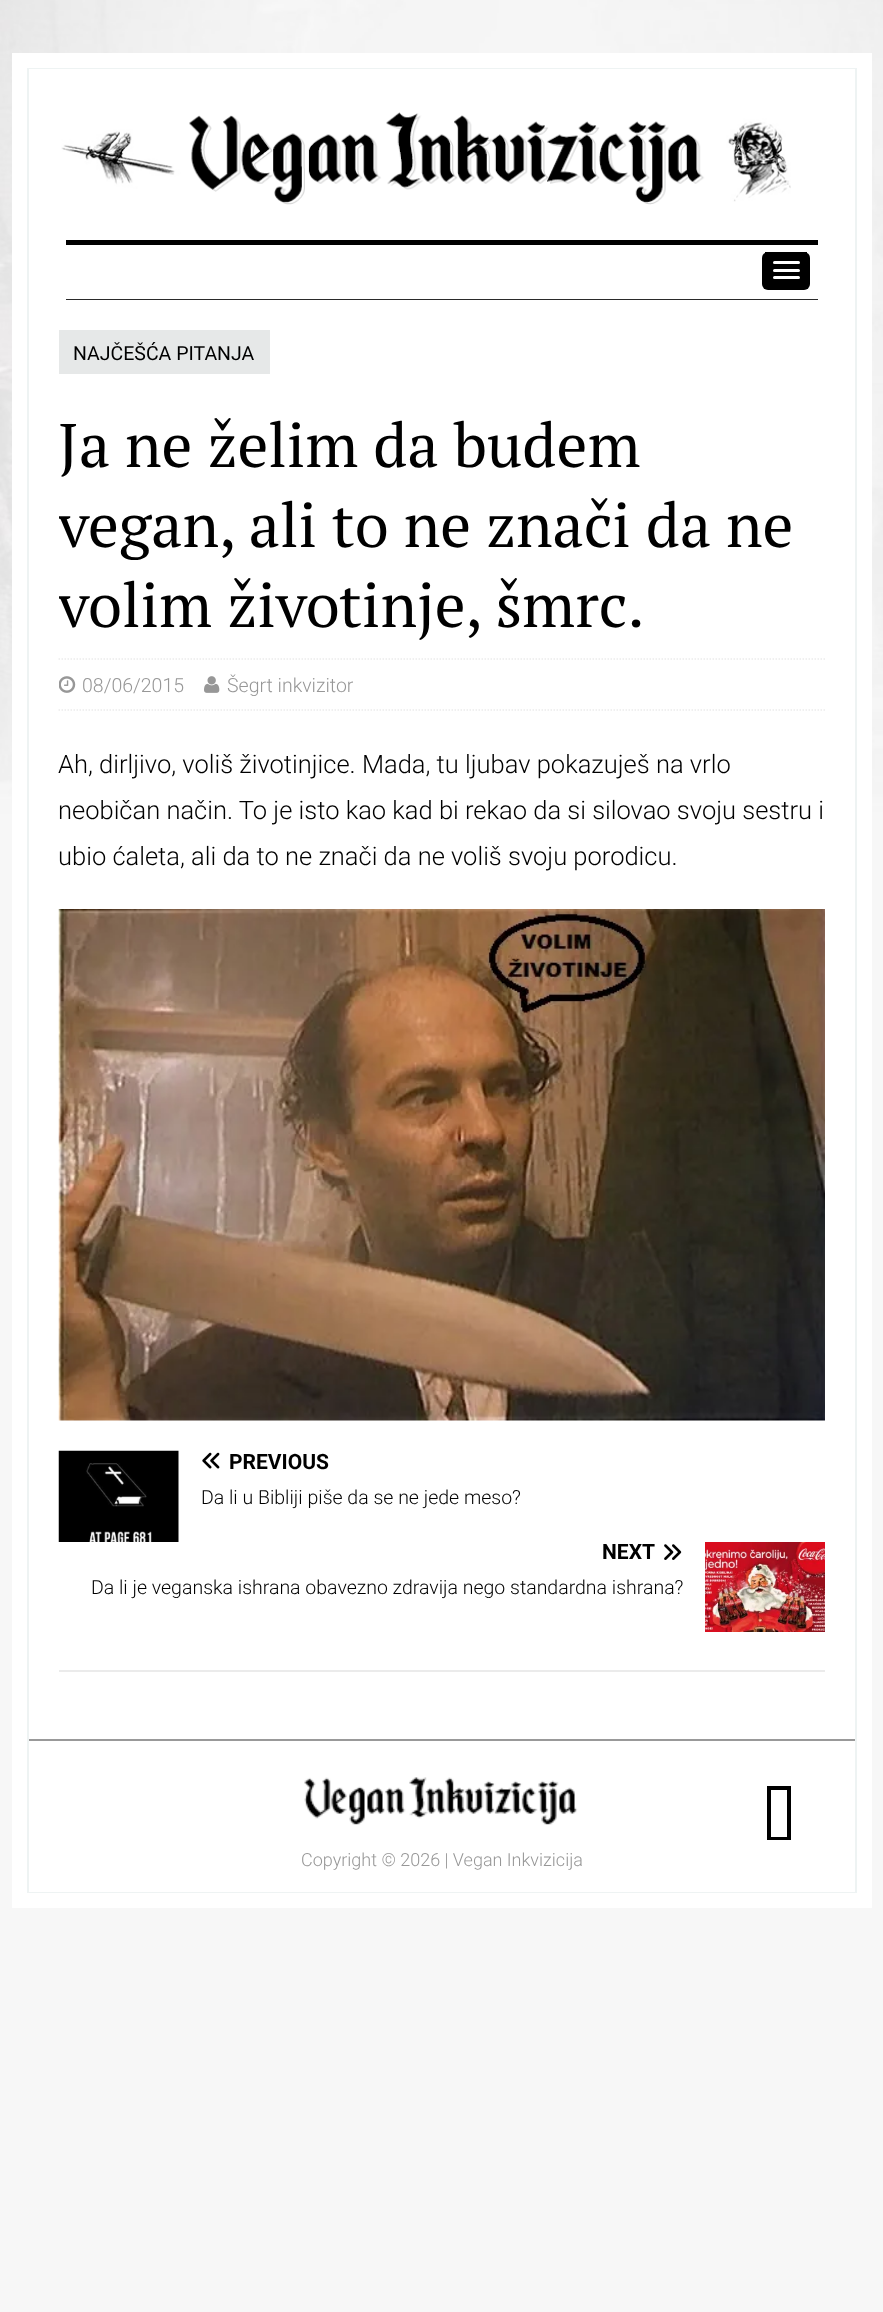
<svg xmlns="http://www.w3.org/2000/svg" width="883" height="2312">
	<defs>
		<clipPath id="clip1"><rect x="59" y="330" width="766" height="1379" /></clipPath>
	</defs>
	<rect width="100%" height="100%" fill="#F7F7F7" />
	<image x="0" y="0" width="883" height="817" href="assets/img1.png" />
	<rect x="12" y="53" width="860" height="1855" fill="#FFFFFF" />
	<rect x="28" y="69" width="828" height="1823" fill="none" stroke="#EEF3F3" stroke-width="2" />
	<rect x="29" y="69" width="826" height="1" fill="#FFFFFF" />
	<image x="61" y="112" width="730" height="93" href="assets/img2.png" />
	<rect x="66" y="240" width="752" height="5" fill="#000000" />
	<rect x="66" y="299" width="752" height="1" fill="#2A2A2A" />
	<rect x="762" y="252" width="48" height="38" rx="6" fill="#000000" />
	<rect x="765" y="252" width="42" height="1" fill="#000000" />
	<rect x="773" y="261" width="27" height="3" rx="1.5" fill="#FFFFFF" />
	<rect x="773" y="269" width="27" height="3" rx="1.5" fill="#FFFFFF" />
	<rect x="773" y="276" width="27" height="3" rx="1.5" fill="#FFFFFF" />
	<rect x="59" y="330" width="211" height="44" fill="#E6E8E8" />
	<text x="73" y="360" font-family="Roboto" font-size="19.5" fill="#000000">NAJČEŠĆA PITANJA</text>
	<text x="58" y="467" font-family="PT Serif" font-size="61.5" fill="#000000">Ja ne želim da budem</text>
	<g clip-path="url(#clip1)">
		<g font-family="PT Serif" font-size="61.5" fill="#000000">
			<text x="58" y="547">vegan, ali to ne znači da ne</text>
			<text x="58" y="627">volim životinje, šmrc.</text>
		</g>
	</g>
	<path d="M58.5 659H825" fill="none" stroke="#EBEBEB" stroke-width="1.5" stroke-dasharray="1.5 1.5" />
	<path d="M58.5 710H825" fill="none" stroke="#EBEBEB" stroke-width="1.5" stroke-dasharray="1.5 1.5" />
	<image x="59" y="676" width="17" height="17" href="assets/img3.png" />
	<text x="82" y="692" font-family="Roboto" font-size="19.5" font-weight="300" fill="#979797">08/06/2015</text>
	<image x="204" y="676" width="16" height="17" href="assets/img4.png" />
	<text x="227" y="692" font-family="Roboto" font-size="19.5" font-weight="300" fill="#979797">Šegrt inkvizitor</text>
	<g font-family="Roboto" font-size="25.5" font-weight="300" fill="#000000">
		<text x="58" y="773">Ah, dirljivo, voliš životinjice. Mada, tu ljubav pokazuješ na vrlo</text>
		<text x="58" y="819">neobičan način. To je isto kao kad bi rekao da si silovao svoju sestru i</text>
		<text x="58" y="865">ubio ćaleta, ali da to ne znači da ne voliš svoju porodicu.</text>
	</g>
	<image x="58" y="909" width="767" height="512" href="assets/img5.png" />
	<rect x="59" y="1670" width="766" height="2" fill="#EBEBEB" />
	<image x="58" y="1450" width="121" height="92" href="assets/img6.png" />
	<image x="202" y="1452" width="18" height="17" href="assets/img7.png" />
	<text x="229" y="1469" font-family="Roboto" font-size="21" font-weight="700" fill="#000000">PREVIOUS</text>
	<text x="201" y="1504" font-family="Roboto" font-size="19.5" font-weight="300" fill="#000000">Da li u Bibliji piše da se ne jede meso?</text>
	<text x="602" y="1559" font-family="Roboto" font-size="21" font-weight="700" fill="#000000">NEXT</text>
	<image x="664" y="1544" width="18" height="16" href="assets/img8.png" />
	<image x="705" y="1542" width="120" height="90" href="assets/img9.png" />
	<text x="91" y="1594" font-family="Roboto" font-size="19.5" font-weight="300" fill="#000000">Da li je veganska ishrana obavezno zdravija nego standardna ishrana?</text>
	<rect x="29" y="1891" width="826" height="1" fill="#FFFFFF" />
	<rect x="29" y="1739" width="826" height="2" fill="#999999" />
	<image x="304" y="1777" width="274" height="48" href="assets/img10.png" />
	<path d="M771 1837H787V1790H771ZM767 1840V1786H791V1840Z" fill="#000000" />
	<text x="301" y="1866" font-family="Roboto" font-size="18" font-weight="300" fill="#979797">Copyright © 2026 | Vegan Inkvizicija</text>
</svg>
